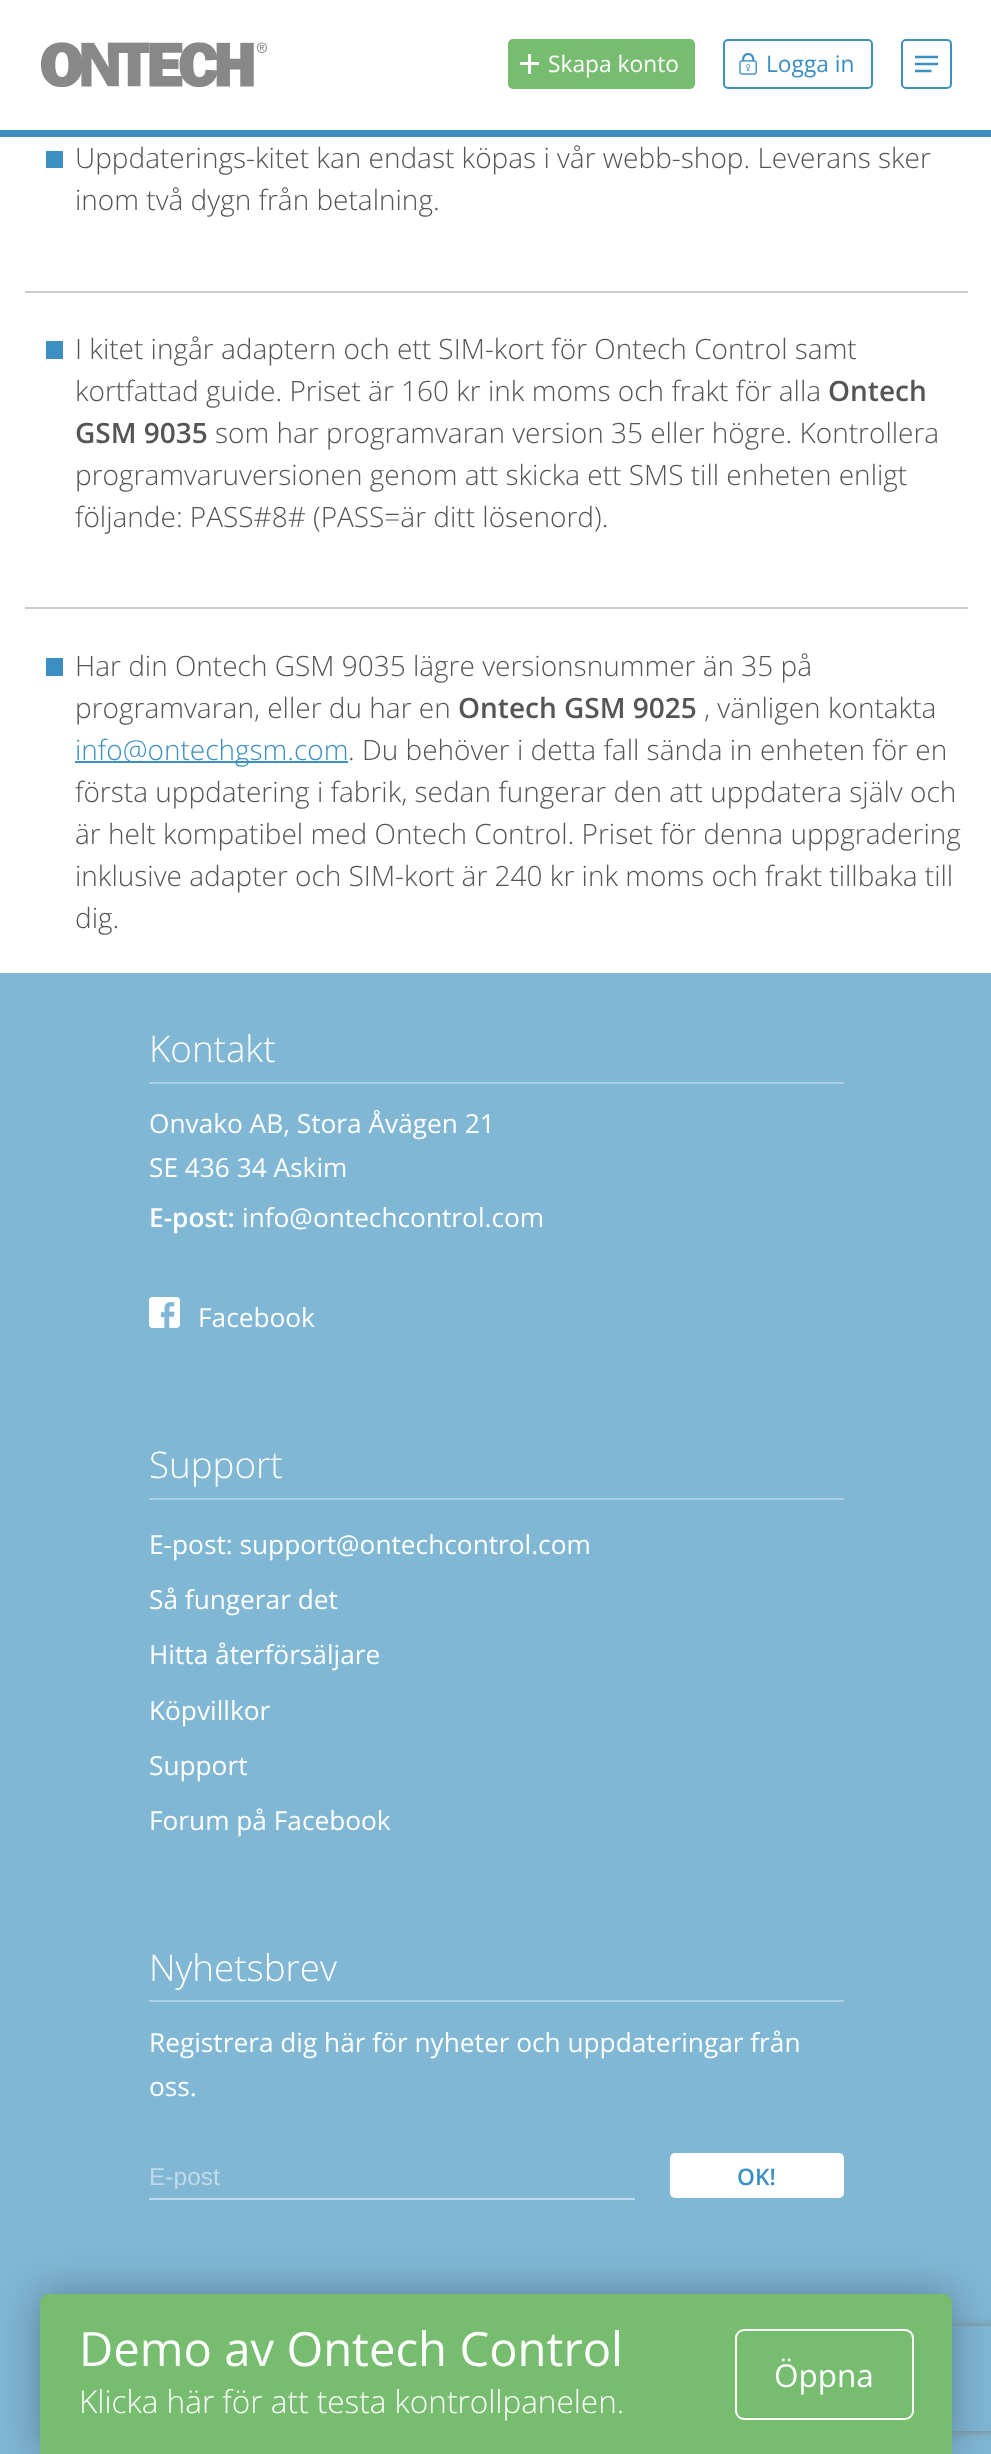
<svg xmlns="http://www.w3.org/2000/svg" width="991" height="2454">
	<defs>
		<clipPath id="clip1"><rect x="149" y="2161" width="486" height="28" /></clipPath>
		<clipPath id="clip2"><path d="M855 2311H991V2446H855ZM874 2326H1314C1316 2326 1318 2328 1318 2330V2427C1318 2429 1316 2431 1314 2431H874C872 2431 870 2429 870 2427V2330C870 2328 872 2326 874 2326Z" clip-rule="evenodd" /></clipPath>
	</defs>
	<rect width="100%" height="100%" fill="#FFFFFF" />
	<rect x="0" y="130" width="991" height="7" fill="#3B8FC3" />
	<image x="41" y="42" width="226" height="45" href="assets/img1.png" />
	<rect x="509" y="40" width="185" height="48" rx="4" fill="#76BD6F" stroke="#76BD6F" stroke-width="2" />
	<rect x="520" y="62" width="19" height="3" fill="#FFFFFF" />
	<rect x="528" y="54" width="3" height="20" fill="#FFFFFF" />
	<text x="548" y="72" font-family="Open Sans" font-size="22.75" fill="#FFFFFF">Skapa konto</text>
	<rect x="724" y="40" width="148" height="48" rx="4" fill="none" stroke="#3B8FC3" stroke-width="2" />
	<image x="739" y="53" width="18" height="22" href="assets/img2.png" />
	<text x="766" y="72" font-family="Open Sans" font-size="22.75" fill="#3B8FC3">Logga in</text>
	<rect x="902" y="40" width="49" height="48" rx="4" fill="none" stroke="#3B8FC3" stroke-width="2" />
	<path d="M915 71H931.5M915 64H938M915 57H938" fill="none" stroke="#3B8FC3" stroke-width="2.6" />
	<rect x="46" y="151" width="17" height="17" fill="#3B8FC3" />
	<g font-family="Open Sans" font-size="28" font-weight="300" fill="#555555">
		<text x="75" y="168">Uppdaterings-kitet kan endast köpas i vår webb-shop. Leverans sker</text>
		<text x="75" y="210">inom två dygn från betalning.</text>
	</g>
	<rect x="25" y="291" width="943" height="2" fill="#CCCCCC" />
	<rect x="46" y="341" width="17" height="18" fill="#3B8FC3" />
	<g font-family="Open Sans" font-size="28" font-weight="300" fill="#555555">
		<text x="75" y="359">I kitet ingår adaptern och ett SIM-kort för Ontech Control samt</text>
		<text x="75" y="401">kortfattad guide. Priset är 160 kr ink moms och frakt för alla</text>
	</g>
	<g font-family="Open Sans" font-size="28" font-weight="600" fill="#555555">
		<text x="828" y="401">Ontech</text>
		<text x="75" y="443">GSM 9035</text>
	</g>
	<g font-family="Open Sans" font-size="28" font-weight="300" fill="#555555">
		<text x="215" y="443">som har programvaran version 35 eller högre. Kontrollera</text>
		<text x="75" y="485">programvaruversionen genom att skicka ett SMS till enheten enligt</text>
		<text x="75" y="527">följande: PASS#8# (PASS=är ditt lösenord).</text>
	</g>
	<rect x="25" y="607" width="943" height="2" fill="#CCCCCC" />
	<rect x="46" y="658" width="17" height="18" fill="#3B8FC3" />
	<g font-family="Open Sans" font-size="28" font-weight="300" fill="#555555">
		<text x="75" y="676">Har din Ontech GSM 9035 lägre versionsnummer än 35 på</text>
		<text x="75" y="718">programvaran, eller du har en</text>
	</g>
	<text x="458" y="718" font-family="Open Sans" font-size="28" font-weight="600" fill="#555555">Ontech GSM 9025</text>
	<text x="704" y="718" font-family="Open Sans" font-size="28" font-weight="300" fill="#555555">, vänligen kontakta</text>
	<rect x="75" y="761" width="273" height="2" fill="#3B8FC3" />
	<text x="75" y="760" font-family="Open Sans" font-size="28" font-weight="300" fill="#3B8FC3">info@ontechgsm.com</text>
	<g font-family="Open Sans" font-size="28" font-weight="300" fill="#555555">
		<text x="348" y="760">. Du behöver i detta fall sända in enheten för en</text>
		<text x="75" y="802">första uppdatering i fabrik, sedan fungerar den att uppdatera själv och</text>
		<text x="75" y="844">är helt kompatibel med Ontech Control. Priset för denna uppgradering</text>
		<text x="75" y="886">inklusive adapter och SIM-kort är 240 kr ink moms och frakt tillbaka till</text>
		<text x="75" y="928">dig.</text>
	</g>
	<rect x="0" y="973" width="991" height="1481" fill="#7FB7D4" />
	<text x="149" y="1062" font-family="Open Sans" font-size="36.75" font-weight="300" fill="#FFFFFF">Kontakt</text>
	<rect x="149" y="1082" width="695" height="2" fill="#ACD0E3" />
	<g font-family="Open Sans" font-size="26.25" fill="#FFFFFF">
		<text x="149" y="1133">Onvako AB, Stora Åvägen 21</text>
		<text x="149" y="1177">SE 436 34 Askim</text>
	</g>
	<text x="149" y="1227" font-family="Open Sans" font-size="26.25" font-weight="600" fill="#FFFFFF">E-post:</text>
	<text x="242" y="1227" font-family="Open Sans" font-size="26.25" fill="#FFFFFF">info@ontechcontrol.com</text>
	<image x="149" y="1297" width="31" height="31" href="assets/img3.png" />
	<text x="198" y="1327" font-family="Open Sans" font-size="26.25" fill="#FFFFFF">Facebook</text>
	<text x="149" y="1478" font-family="Open Sans" font-size="36.75" font-weight="300" fill="#FFFFFF">Support</text>
	<rect x="149" y="1498" width="695" height="2" fill="#ACD0E3" />
	<g font-family="Open Sans" font-size="26.25" fill="#FFFFFF">
		<text x="149" y="1554">E-post: support@ontechcontrol.com</text>
		<text x="149" y="1609">Så fungerar det</text>
		<text x="149" y="1664">Hitta återförsäljare</text>
		<text x="149" y="1720">Köpvillkor</text>
		<text x="149" y="1775">Support</text>
		<text x="149" y="1830">Forum på Facebook</text>
	</g>
	<text x="149" y="1981" font-family="Open Sans" font-size="36.75" font-weight="300" fill="#FFFFFF">Nyhetsbrev</text>
	<rect x="149" y="2000" width="695" height="2" fill="#ACD0E3" />
	<g font-family="Open Sans" font-size="26.25" fill="#FFFFFF">
		<text x="149" y="2052">Registrera dig här för nyheter och uppdateringar från</text>
		<text x="149" y="2096">oss.</text>
	</g>
	<rect x="149" y="2198" width="486" height="2" fill="#C2D9E6" />
	<g clip-path="url(#clip1)">
		<text x="149" y="2185" font-family="Liberation Sans" font-size="24.5" fill="#C2D9E6">E-post</text>
	</g>
	<rect x="670" y="2153" width="174" height="45" rx="5" fill="#FFFFFF" />
	<text x="737" y="2185" font-family="Open Sans" font-size="22.75" font-weight="600" fill="#3B8FC3">OK!</text>
	<rect x="40" y="2294" width="912" height="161" rx="9" fill="#000000" fill-opacity="0.3" filter="blur(21px)" />
	<g clip-path="url(#clip2)">
		<rect x="870" y="2326" width="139" height="105" rx="4" fill="#808080" filter="blur(4.5px)" />
	</g>
	<path d="M49 2294H943C948 2294 952 2298 952 2303V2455H40V2303C40 2298 44 2294 49 2294Z" fill="#76BD6F" />
	<text x="79" y="2366" font-family="Open Sans" font-size="47.25" fill="#FFFFFF">Demo av Ontech Control</text>
	<rect x="736" y="2330" width="177" height="89" rx="8" fill="none" stroke="#FFFFFF" stroke-width="2" />
	<text x="774" y="2387" font-family="Open Sans" font-size="31.5" fill="#FFFFFF">Öppna</text>
	<text x="79" y="2413" font-family="Open Sans" font-size="31.5" font-weight="300" fill="#FFFFFF">Klicka här för att testa kontrollpanelen.</text>
</svg>
